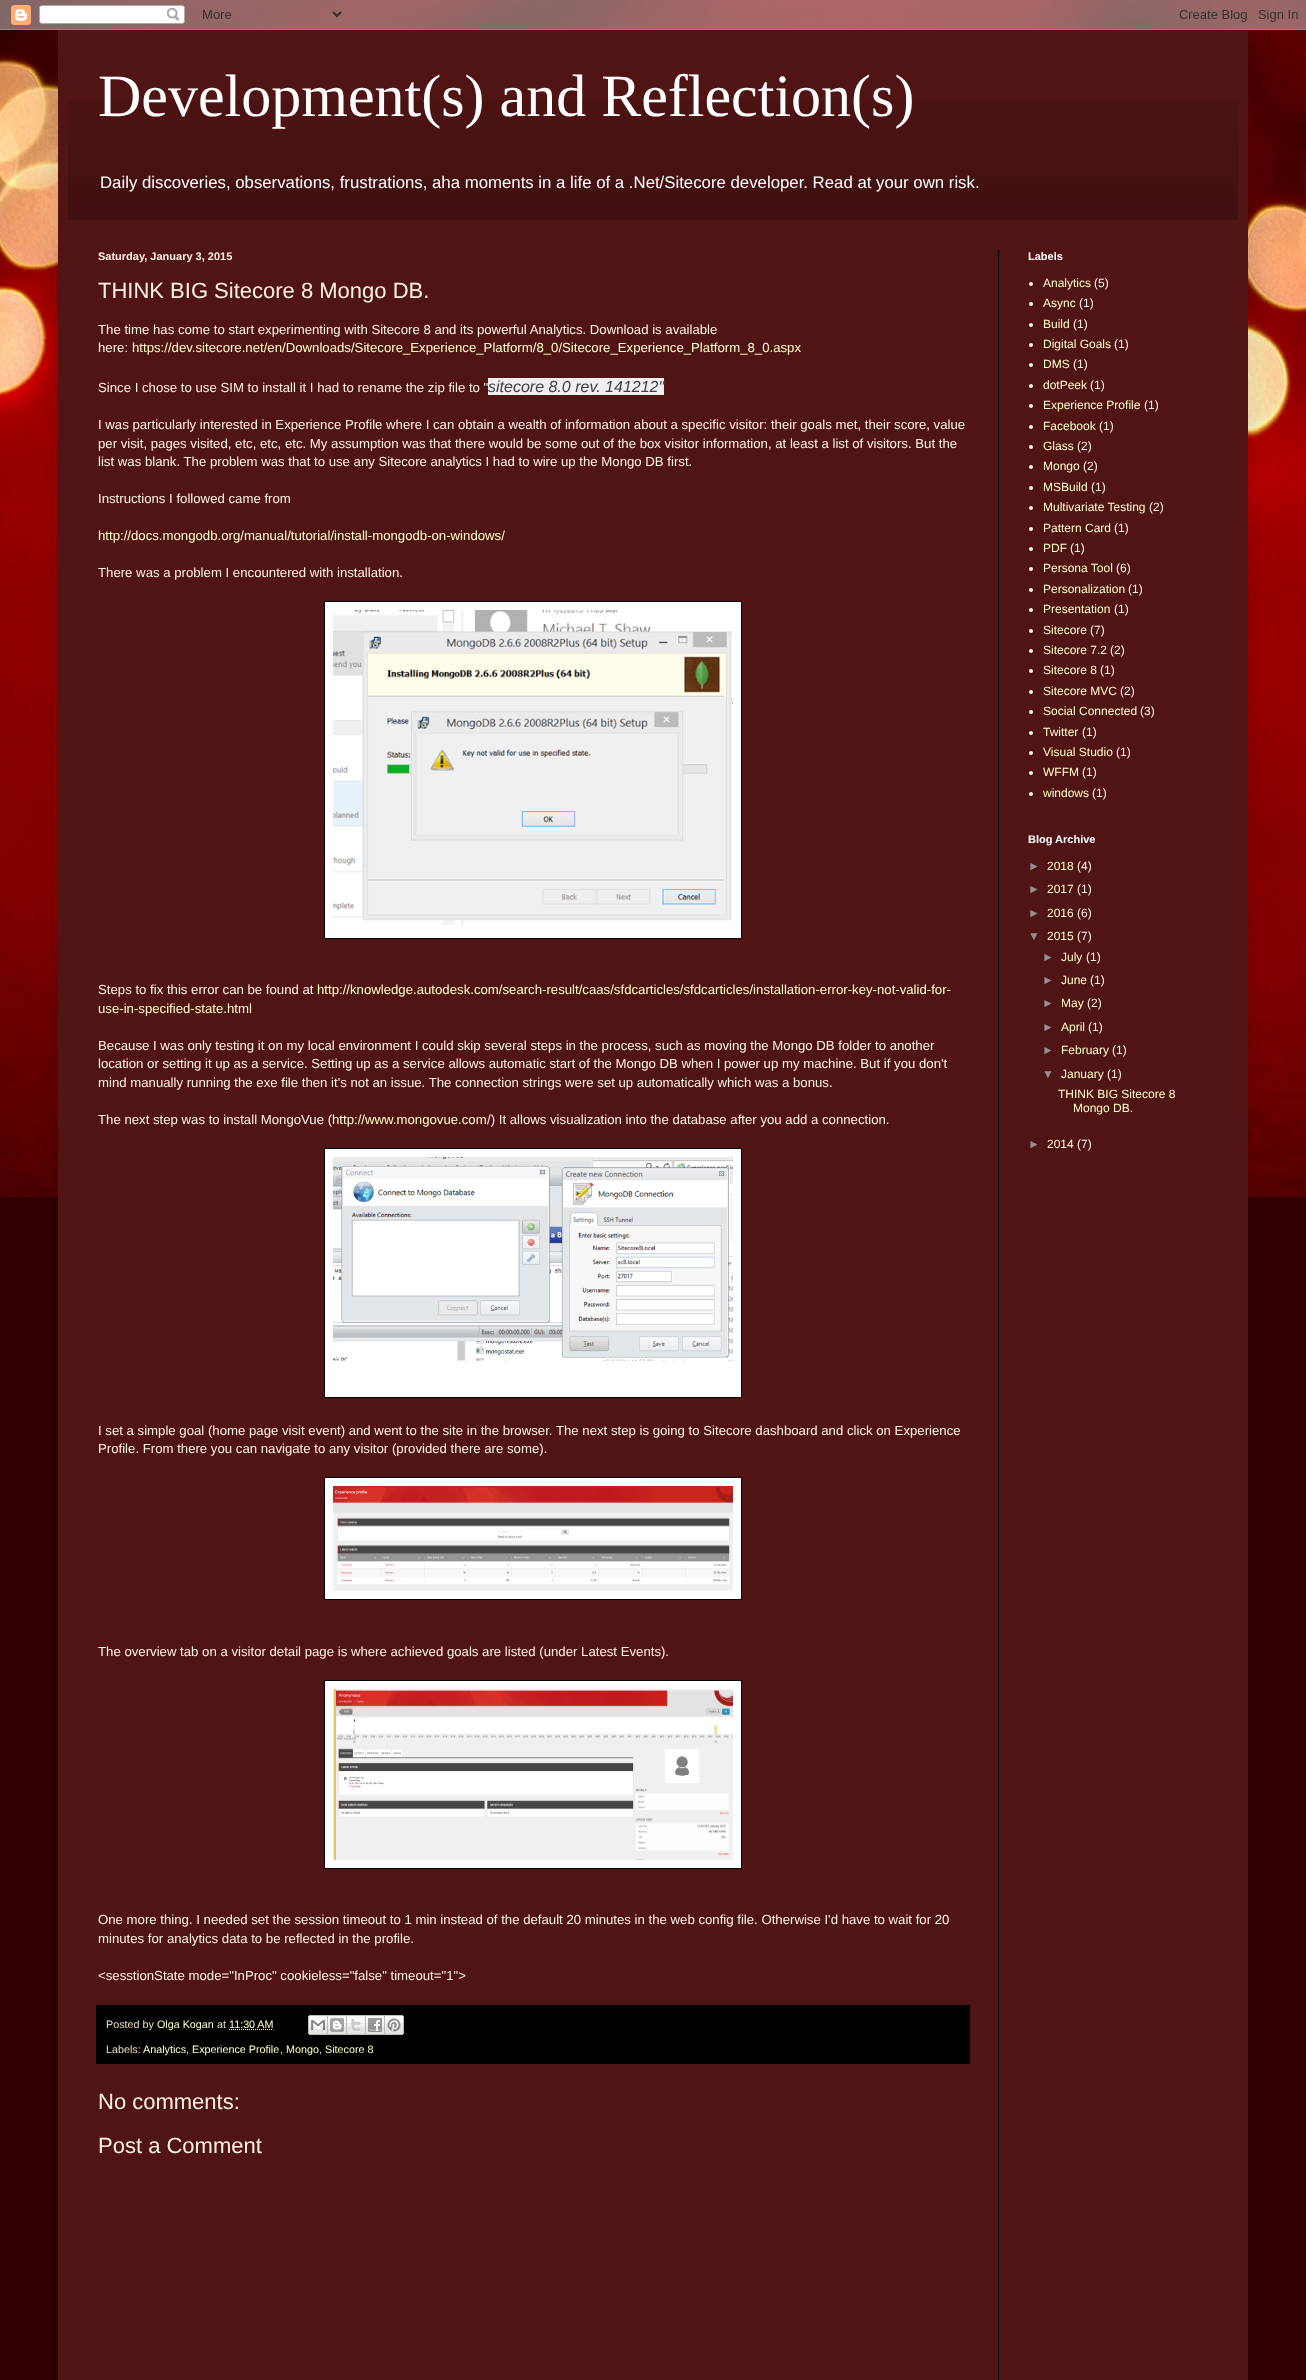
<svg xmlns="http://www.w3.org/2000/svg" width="1306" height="2380">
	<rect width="100%" height="100%" fill="#320202" />
	<image x="0" y="0" width="1306" height="1197" href="assets/img1.png" />
	<rect x="58" y="30" width="1190" height="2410" fill="#000000" fill-opacity="0.15" filter="blur(20px)" />
	<image x="0" y="0" width="1306" height="30" href="assets/img2.png" />
	<rect x="58" y="30" width="1190" height="2350" fill="#501414" />
	<image x="68" y="101" width="1170" height="119" href="assets/img3.png" />
	<text x="98" y="116" font-family="Liberation Serif" font-size="60" fill="#FFFFFF">Development(s) and Reflection(s)</text>
	<text x="100" y="188" font-family="Liberation Sans" font-size="16.8" fill="#FFFFFF">Daily discoveries, observations, frustrations, aha moments in a life of a .Net/Sitecore developer. Read at your own risk.</text>
	<rect x="998" y="250" width="1" height="2130" fill="#000000" />
	<text x="98" y="260" font-family="Liberation Sans" font-size="11" font-weight="700" fill="#FFF1E8">Saturday, January 3, 2015</text>
	<text x="98" y="298" font-family="Liberation Sans" font-size="22" fill="#FFF1E8">THINK BIG Sitecore 8 Mongo DB.</text>
	<g font-family="Liberation Sans" font-size="13.2" fill="#FFF1E8">
		<text x="98" y="334">The time has come to start experimenting with Sitecore 8 and its powerful Analytics. Download is available</text>
		<text x="98" y="352">here:</text>
	</g>
	<text x="132" y="352" font-family="Liberation Sans" font-size="13.2" fill="#FFFFC5">https://dev.sitecore.net/en/Downloads/Sitecore_Experience_Platform/8_0/Sitecore_Experience_Platform_8_0.aspx</text>
	<text x="98" y="392" font-family="Liberation Sans" font-size="13.2" fill="#FFF1E8">Since I chose to use SIM to install it I had to rename the zip file to "</text>
	<rect x="488" y="378" width="176" height="17" fill="#EFEFEF" />
	<text x="488" y="392" font-family="Liberation Sans" font-size="16" font-style="italic" fill="#414042">sitecore 8.0 rev. 141212"</text>
	<g font-family="Liberation Sans" font-size="13.2" fill="#FFF1E8">
		<text x="98" y="429">I was particularly interested in Experience Profile where I can obtain a wealth of information about a specific visitor: their goals met, their score, value</text>
		<text x="98" y="448">per visit, pages visited, etc, etc, etc. My assumption was that there would be some out of the box visitor information, at least a list of visitors. But the</text>
		<text x="98" y="466">list was blank. The problem was that to use any Sitecore analytics I had to wire up the Mongo DB first.</text>
		<text x="98" y="503">Instructions I followed came from</text>
	</g>
	<text x="98" y="540" font-family="Liberation Sans" font-size="13.2" fill="#FFFFC5">http://docs.mongodb.org/manual/tutorial/install-mongodb-on-windows/</text>
	<text x="98" y="577" font-family="Liberation Sans" font-size="13.2" fill="#FFF1E8">There was a problem I encountered with installation.</text>
	<rect x="324.5" y="601.5" width="417" height="337" fill="#FFFFFF" stroke="#000000" />
	<image x="333" y="610" width="400" height="316" href="assets/img4.png" />
	<text x="98" y="994" font-family="Liberation Sans" font-size="13.2" fill="#FFF1E8">Steps to fix this error can be found at</text>
	<g font-family="Liberation Sans" font-size="13.2" fill="#FFFFC5">
		<text x="317" y="994">http://knowledge.autodesk.com/search-result/caas/sfdcarticles/sfdcarticles/installation-error-key-not-valid-for-</text>
		<text x="98" y="1013">use-in-specified-state.html</text>
	</g>
	<g font-family="Liberation Sans" font-size="13.2" fill="#FFF1E8">
		<text x="98" y="1050">Because I was only testing it on my local environment I could skip several steps in the process, such as moving the Mongo DB folder to another</text>
		<text x="98" y="1068">location or setting it up as a service. Setting up as a service allows automatic start of the Mongo DB when I power up my machine. But if you don't</text>
		<text x="98" y="1087">mind manually running the exe file then it's not an issue. The connection strings were set up automatically which was a bonus.</text>
		<text x="98" y="1124">The next step was to install MongoVue (</text>
	</g>
	<text x="332" y="1124" font-family="Liberation Sans" font-size="13.2" fill="#FFFFC5">http://www.mongovue.com</text>
	<text x="487" y="1124" font-family="Liberation Sans" font-size="13.2" fill="#FFF1E8">/) It allows visualization into the database after you add a connection.</text>
	<rect x="324.5" y="1148.5" width="417" height="249" fill="#FFFFFF" stroke="#000000" />
	<image x="333" y="1157" width="400" height="204" href="assets/img5.png" />
	<g font-family="Liberation Sans" font-size="13.2" fill="#FFF1E8">
		<text x="98" y="1435">I set a simple goal (home page visit event) and went to the site in the browser. The next step is going to Sitecore dashboard and click on Experience</text>
		<text x="98" y="1453">Profile. From there you can navigate to any visitor (provided there are some).</text>
	</g>
	<rect x="324.5" y="1477.5" width="417" height="122" fill="#FFFFFF" stroke="#000000" />
	<image x="333" y="1486" width="400" height="105" href="assets/img6.png" />
	<text x="98" y="1656" font-family="Liberation Sans" font-size="13.2" fill="#FFF1E8">The overview tab on a visitor detail page is where achieved goals are listed (under Latest Events).</text>
	<rect x="324.5" y="1680.5" width="417" height="188" fill="#FFFFFF" stroke="#000000" />
	<image x="333" y="1689" width="400" height="171" href="assets/img7.png" />
	<g font-family="Liberation Sans" font-size="13.2" fill="#FFF1E8">
		<text x="98" y="1924">One more thing. I needed set the session timeout to 1 min instead of the default 20 minutes in the web config file. Otherwise I'd have to wait for 20</text>
		<text x="98" y="1943">minutes for analytics data to be reflected in the profile.</text>
		<text x="98" y="1980">&lt;sesstionState mode="InProc" cookieless="false" timeout="1"&gt;</text>
	</g>
	<rect x="96" y="2005" width="874" height="59" fill="#000000" />
	<text x="106" y="2028" font-family="Liberation Sans" font-size="10.75" fill="#ECD9C6">Posted by</text>
	<text x="157" y="2028" font-family="Liberation Sans" font-size="10.75" fill="#FFFFC5">Olga Kogan</text>
	<text x="217" y="2028" font-family="Liberation Sans" font-size="10.75" fill="#ECD9C6">at</text>
	<text x="229" y="2028" font-family="Liberation Sans" font-size="10.75" fill="#FFFFC5">11:30 AM</text>
	<path d="M229 2029.5H273.5" fill="none" stroke="#FFFFC5" stroke-dasharray="1 1" />
	<image x="308" y="2015" width="20" height="20" href="assets/img8.png" />
	<image x="328" y="2015" width="19" height="20" href="assets/img9.png" />
	<image x="347" y="2015" width="19" height="20" href="assets/img10.png" />
	<image x="366" y="2015" width="19" height="20" href="assets/img11.png" />
	<image x="385" y="2015" width="19" height="20" href="assets/img12.png" />
	<text x="106" y="2053" font-family="Liberation Sans" font-size="10.75" fill="#ECD9C6">Labels:</text>
	<text x="143" y="2053" font-family="Liberation Sans" font-size="10.75" fill="#FFFFC5">Analytics</text>
	<text x="186" y="2053" font-family="Liberation Sans" font-size="10.75" fill="#ECD9C6">,</text>
	<text x="192" y="2053" font-family="Liberation Sans" font-size="10.75" fill="#FFFFC5">Experience Profile</text>
	<text x="280" y="2053" font-family="Liberation Sans" font-size="10.75" fill="#ECD9C6">,</text>
	<text x="286" y="2053" font-family="Liberation Sans" font-size="10.75" fill="#FFFFC5">Mongo</text>
	<text x="319" y="2053" font-family="Liberation Sans" font-size="10.75" fill="#ECD9C6">,</text>
	<text x="325" y="2053" font-family="Liberation Sans" font-size="10.75" fill="#FFFFC5">Sitecore 8</text>
	<g font-family="Liberation Sans" font-size="22" fill="#FFF1E8">
		<text x="98" y="2109">No comments:</text>
		<text x="98" y="2153">Post a Comment</text>
	</g>
	<text x="1028" y="260" font-family="Liberation Sans" font-size="11" font-weight="700" fill="#FFFFFF">Labels</text>
	<circle cx="1031" cy="284" r="2" fill="#FFF1E8" />
	<text x="1043" y="287" font-family="Liberation Sans" font-size="12" fill="#FFFFC5">Analytics</text>
	<text x="1094" y="287" font-family="Liberation Sans" font-size="12" fill="#FFF1E8">(5)</text>
	<circle cx="1031" cy="304" r="2" fill="#FFF1E8" />
	<text x="1043" y="307" font-family="Liberation Sans" font-size="12" fill="#FFFFC5">Async</text>
	<text x="1079" y="307" font-family="Liberation Sans" font-size="12" fill="#FFF1E8">(1)</text>
	<circle cx="1031" cy="325" r="2" fill="#FFF1E8" />
	<text x="1043" y="328" font-family="Liberation Sans" font-size="12" fill="#FFFFC5">Build</text>
	<text x="1073" y="328" font-family="Liberation Sans" font-size="12" fill="#FFF1E8">(1)</text>
	<circle cx="1031" cy="345" r="2" fill="#FFF1E8" />
	<text x="1043" y="348" font-family="Liberation Sans" font-size="12" fill="#FFFFC5">Digital Goals</text>
	<text x="1114" y="348" font-family="Liberation Sans" font-size="12" fill="#FFF1E8">(1)</text>
	<circle cx="1031" cy="365" r="2" fill="#FFF1E8" />
	<text x="1043" y="368" font-family="Liberation Sans" font-size="12" fill="#FFFFC5">DMS</text>
	<text x="1073" y="368" font-family="Liberation Sans" font-size="12" fill="#FFF1E8">(1)</text>
	<circle cx="1031" cy="386" r="2" fill="#FFF1E8" />
	<text x="1043" y="389" font-family="Liberation Sans" font-size="12" fill="#FFFFC5">dotPeek</text>
	<text x="1090" y="389" font-family="Liberation Sans" font-size="12" fill="#FFF1E8">(1)</text>
	<circle cx="1031" cy="406" r="2" fill="#FFF1E8" />
	<text x="1043" y="409" font-family="Liberation Sans" font-size="12" fill="#FFFFC5">Experience Profile</text>
	<text x="1144" y="409" font-family="Liberation Sans" font-size="12" fill="#FFF1E8">(1)</text>
	<circle cx="1031" cy="427" r="2" fill="#FFF1E8" />
	<text x="1043" y="430" font-family="Liberation Sans" font-size="12" fill="#FFFFC5">Facebook</text>
	<text x="1099" y="430" font-family="Liberation Sans" font-size="12" fill="#FFF1E8">(1)</text>
	<circle cx="1031" cy="447" r="2" fill="#FFF1E8" />
	<text x="1043" y="450" font-family="Liberation Sans" font-size="12" fill="#FFFFC5">Glass</text>
	<text x="1077" y="450" font-family="Liberation Sans" font-size="12" fill="#FFF1E8">(2)</text>
	<circle cx="1031" cy="467" r="2" fill="#FFF1E8" />
	<text x="1043" y="470" font-family="Liberation Sans" font-size="12" fill="#FFFFC5">Mongo</text>
	<text x="1083" y="470" font-family="Liberation Sans" font-size="12" fill="#FFF1E8">(2)</text>
	<circle cx="1031" cy="488" r="2" fill="#FFF1E8" />
	<text x="1043" y="491" font-family="Liberation Sans" font-size="12" fill="#FFFFC5">MSBuild</text>
	<text x="1091" y="491" font-family="Liberation Sans" font-size="12" fill="#FFF1E8">(1)</text>
	<circle cx="1031" cy="508" r="2" fill="#FFF1E8" />
	<text x="1043" y="511" font-family="Liberation Sans" font-size="12" fill="#FFFFC5">Multivariate Testing</text>
	<text x="1149" y="511" font-family="Liberation Sans" font-size="12" fill="#FFF1E8">(2)</text>
	<circle cx="1031" cy="529" r="2" fill="#FFF1E8" />
	<text x="1043" y="532" font-family="Liberation Sans" font-size="12" fill="#FFFFC5">Pattern Card</text>
	<text x="1114" y="532" font-family="Liberation Sans" font-size="12" fill="#FFF1E8">(1)</text>
	<circle cx="1031" cy="549" r="2" fill="#FFF1E8" />
	<text x="1043" y="552" font-family="Liberation Sans" font-size="12" fill="#FFFFC5">PDF</text>
	<text x="1070" y="552" font-family="Liberation Sans" font-size="12" fill="#FFF1E8">(1)</text>
	<circle cx="1031" cy="569" r="2" fill="#FFF1E8" />
	<text x="1043" y="572" font-family="Liberation Sans" font-size="12" fill="#FFFFC5">Persona Tool</text>
	<text x="1116" y="572" font-family="Liberation Sans" font-size="12" fill="#FFF1E8">(6)</text>
	<circle cx="1031" cy="590" r="2" fill="#FFF1E8" />
	<text x="1043" y="593" font-family="Liberation Sans" font-size="12" fill="#FFFFC5">Personalization</text>
	<text x="1128" y="593" font-family="Liberation Sans" font-size="12" fill="#FFF1E8">(1)</text>
	<circle cx="1031" cy="610" r="2" fill="#FFF1E8" />
	<text x="1043" y="613" font-family="Liberation Sans" font-size="12" fill="#FFFFC5">Presentation</text>
	<text x="1114" y="613" font-family="Liberation Sans" font-size="12" fill="#FFF1E8">(1)</text>
	<circle cx="1031" cy="631" r="2" fill="#FFF1E8" />
	<text x="1043" y="634" font-family="Liberation Sans" font-size="12" fill="#FFFFC5">Sitecore</text>
	<text x="1090" y="634" font-family="Liberation Sans" font-size="12" fill="#FFF1E8">(7)</text>
	<circle cx="1031" cy="651" r="2" fill="#FFF1E8" />
	<text x="1043" y="654" font-family="Liberation Sans" font-size="12" fill="#FFFFC5">Sitecore 7.2</text>
	<text x="1110" y="654" font-family="Liberation Sans" font-size="12" fill="#FFF1E8">(2)</text>
	<circle cx="1031" cy="671" r="2" fill="#FFF1E8" />
	<text x="1043" y="674" font-family="Liberation Sans" font-size="12" fill="#FFFFC5">Sitecore 8</text>
	<text x="1100" y="674" font-family="Liberation Sans" font-size="12" fill="#FFF1E8">(1)</text>
	<circle cx="1031" cy="692" r="2" fill="#FFF1E8" />
	<text x="1043" y="695" font-family="Liberation Sans" font-size="12" fill="#FFFFC5">Sitecore MVC</text>
	<text x="1120" y="695" font-family="Liberation Sans" font-size="12" fill="#FFF1E8">(2)</text>
	<circle cx="1031" cy="712" r="2" fill="#FFF1E8" />
	<text x="1043" y="715" font-family="Liberation Sans" font-size="12" fill="#FFFFC5">Social Connected</text>
	<text x="1140" y="715" font-family="Liberation Sans" font-size="12" fill="#FFF1E8">(3)</text>
	<circle cx="1031" cy="733" r="2" fill="#FFF1E8" />
	<text x="1043" y="736" font-family="Liberation Sans" font-size="12" fill="#FFFFC5">Twitter</text>
	<text x="1082" y="736" font-family="Liberation Sans" font-size="12" fill="#FFF1E8">(1)</text>
	<circle cx="1031" cy="753" r="2" fill="#FFF1E8" />
	<text x="1043" y="756" font-family="Liberation Sans" font-size="12" fill="#FFFFC5">Visual Studio</text>
	<text x="1116" y="756" font-family="Liberation Sans" font-size="12" fill="#FFF1E8">(1)</text>
	<circle cx="1031" cy="773" r="2" fill="#FFF1E8" />
	<text x="1043" y="776" font-family="Liberation Sans" font-size="12" fill="#FFFFC5">WFFM</text>
	<text x="1082" y="776" font-family="Liberation Sans" font-size="12" fill="#FFF1E8">(1)</text>
	<circle cx="1031" cy="794" r="2" fill="#FFF1E8" />
	<text x="1043" y="797" font-family="Liberation Sans" font-size="12" fill="#FFFFC5">windows</text>
	<text x="1092" y="797" font-family="Liberation Sans" font-size="12" fill="#FFF1E8">(1)</text>
	<text x="1028" y="843" font-family="Liberation Sans" font-size="11" font-weight="700" fill="#FFFFFF">Blog Archive</text>
	<text x="1028" y="870" font-family="Liberation Sans" font-size="12" fill="#919191">►</text>
	<text x="1047" y="870" font-family="Liberation Sans" font-size="12" fill="#FFFFC5">2018</text>
	<text x="1077" y="870" font-family="Liberation Sans" font-size="12" fill="#FFF1E8">(4)</text>
	<text x="1028" y="893" font-family="Liberation Sans" font-size="12" fill="#919191">►</text>
	<text x="1047" y="893" font-family="Liberation Sans" font-size="12" fill="#FFFFC5">2017</text>
	<text x="1077" y="893" font-family="Liberation Sans" font-size="12" fill="#FFF1E8">(1)</text>
	<text x="1028" y="917" font-family="Liberation Sans" font-size="12" fill="#919191">►</text>
	<text x="1047" y="917" font-family="Liberation Sans" font-size="12" fill="#FFFFC5">2016</text>
	<text x="1077" y="917" font-family="Liberation Sans" font-size="12" fill="#FFF1E8">(6)</text>
	<text x="1028" y="940" font-family="Liberation Sans" font-size="12" fill="#919191">▼</text>
	<text x="1047" y="940" font-family="Liberation Sans" font-size="12" fill="#FFFFC5">2015</text>
	<text x="1077" y="940" font-family="Liberation Sans" font-size="12" fill="#FFF1E8">(7)</text>
	<text x="1042" y="961" font-family="Liberation Sans" font-size="12" fill="#919191">►</text>
	<text x="1061" y="961" font-family="Liberation Sans" font-size="12" fill="#FFFFC5">July</text>
	<text x="1086" y="961" font-family="Liberation Sans" font-size="12" fill="#FFF1E8">(1)</text>
	<text x="1042" y="984" font-family="Liberation Sans" font-size="12" fill="#919191">►</text>
	<text x="1061" y="984" font-family="Liberation Sans" font-size="12" fill="#FFFFC5">June</text>
	<text x="1090" y="984" font-family="Liberation Sans" font-size="12" fill="#FFF1E8">(1)</text>
	<text x="1042" y="1007" font-family="Liberation Sans" font-size="12" fill="#919191">►</text>
	<text x="1061" y="1007" font-family="Liberation Sans" font-size="12" fill="#FFFFC5">May</text>
	<text x="1087" y="1007" font-family="Liberation Sans" font-size="12" fill="#FFF1E8">(2)</text>
	<text x="1042" y="1031" font-family="Liberation Sans" font-size="12" fill="#919191">►</text>
	<text x="1061" y="1031" font-family="Liberation Sans" font-size="12" fill="#FFFFC5">April</text>
	<text x="1088" y="1031" font-family="Liberation Sans" font-size="12" fill="#FFF1E8">(1)</text>
	<text x="1042" y="1054" font-family="Liberation Sans" font-size="12" fill="#919191">►</text>
	<text x="1061" y="1054" font-family="Liberation Sans" font-size="12" fill="#FFFFC5">February</text>
	<text x="1112" y="1054" font-family="Liberation Sans" font-size="12" fill="#FFF1E8">(1)</text>
	<text x="1042" y="1078" font-family="Liberation Sans" font-size="12" fill="#919191">▼</text>
	<text x="1061" y="1078" font-family="Liberation Sans" font-size="12" fill="#FFFFC5">January</text>
	<text x="1107" y="1078" font-family="Liberation Sans" font-size="12" fill="#FFF1E8">(1)</text>
	<g font-family="Liberation Sans" font-size="12" fill="#FFFFC5">
		<text x="1058" y="1098">THINK BIG Sitecore 8</text>
		<text x="1073" y="1112">Mongo DB.</text>
	</g>
	<text x="1028" y="1148" font-family="Liberation Sans" font-size="12" fill="#919191">►</text>
	<text x="1047" y="1148" font-family="Liberation Sans" font-size="12" fill="#FFFFC5">2014</text>
	<text x="1077" y="1148" font-family="Liberation Sans" font-size="12" fill="#FFF1E8">(7)</text>
</svg>
